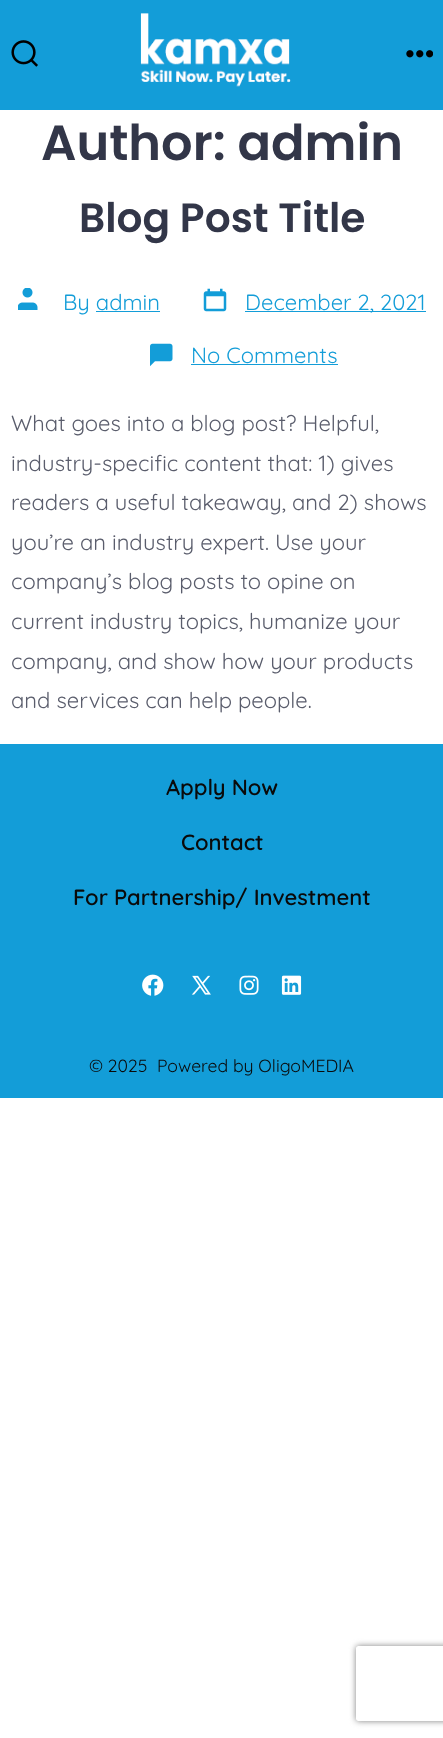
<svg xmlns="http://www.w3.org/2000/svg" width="443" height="1738">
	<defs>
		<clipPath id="clip1"><path d="M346 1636H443V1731H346ZM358.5 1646H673.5C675 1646 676 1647 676 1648.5V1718.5C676 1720 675 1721 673.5 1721H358.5C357 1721 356 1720 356 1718.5V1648.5C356 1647 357 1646 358.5 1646Z" clip-rule="evenodd" /></clipPath>
	</defs>
	<rect width="100%" height="100%" fill="#FFFFFF" />
	<rect x="0" y="0" width="443" height="110" fill="#139DD8" />
	<image x="11" y="40" width="27" height="27" href="assets/img1.png" />
	<image x="140" y="13" width="151" height="74" href="assets/img2.png" />
	<image x="406" y="50" width="27" height="8" href="assets/img3.png" />
	<text x="41" y="160" font-family="Poppins" font-size="49.5" font-weight="600" fill="#323648">Author: admin</text>
	<text x="79" y="232" font-family="Poppins" font-size="40.75" font-weight="600" fill="#323648">Blog Post Title</text>
	<image x="18" y="288" width="20" height="22" href="assets/img4.png" />
	<text x="63" y="310" font-family="Quicksand" font-size="22" fill="#139DD8">By admin</text>
	<rect x="96" y="311" width="64" height="1" fill="#139DD8" />
	<image x="203" y="288" width="24" height="24" href="assets/img5.png" />
	<rect x="245" y="311" width="181" height="1" fill="#139DD8" />
	<text x="245" y="310" font-family="Quicksand" font-size="22" fill="#139DD8">December 2, 2021</text>
	<image x="150" y="343" width="23" height="24" href="assets/img6.png" />
	<text x="191" y="363" font-family="Quicksand" font-size="22" fill="#139DD8">No Comments</text>
	<rect x="191" y="364" width="147" height="1" fill="#139DD8" />
	<g font-family="Quicksand" font-size="22" fill="#5A5D6C">
		<text x="11" y="431">What goes into a blog post? Helpful,</text>
		<text x="11" y="471">industry-specific content that: 1) gives</text>
		<text x="11" y="510">readers a useful takeaway, and 2) shows</text>
		<text x="11" y="550">you’re an industry expert. Use your</text>
		<text x="11" y="589">company’s blog posts to opine on</text>
		<text x="11" y="629">current industry topics, humanize your</text>
		<text x="11" y="669">company, and show how your products</text>
		<text x="11" y="708">and services can help people.</text>
	</g>
	<rect x="0" y="744" width="443" height="354" fill="#139DD8" />
	<g font-family="Quicksand" font-size="22" font-weight="600" fill="#0A0A0A">
		<text x="166" y="795">Apply Now</text>
		<text x="181" y="850">Contact</text>
		<text x="73" y="905">For Partnership/ Investment</text>
	</g>
	<image x="142" y="974" width="22" height="22" href="assets/img7.png" />
	<image x="191" y="975" width="20" height="20" href="assets/img8.png" />
	<image x="239" y="975" width="20" height="20" href="assets/img9.png" />
	<image x="281" y="975" width="21" height="20" href="assets/img10.png" />
	<g font-family="Quicksand" font-size="17.6" fill="#0A0A0A">
		<text x="89" y="1072">© 2025</text>
		<text x="157" y="1072">Powered by OligoMEDIA</text>
	</g>
	<g clip-path="url(#clip1)">
		<rect x="356" y="1646" width="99" height="75" rx="2.5" fill="#808080" filter="blur(3px)" />
	</g>
</svg>
